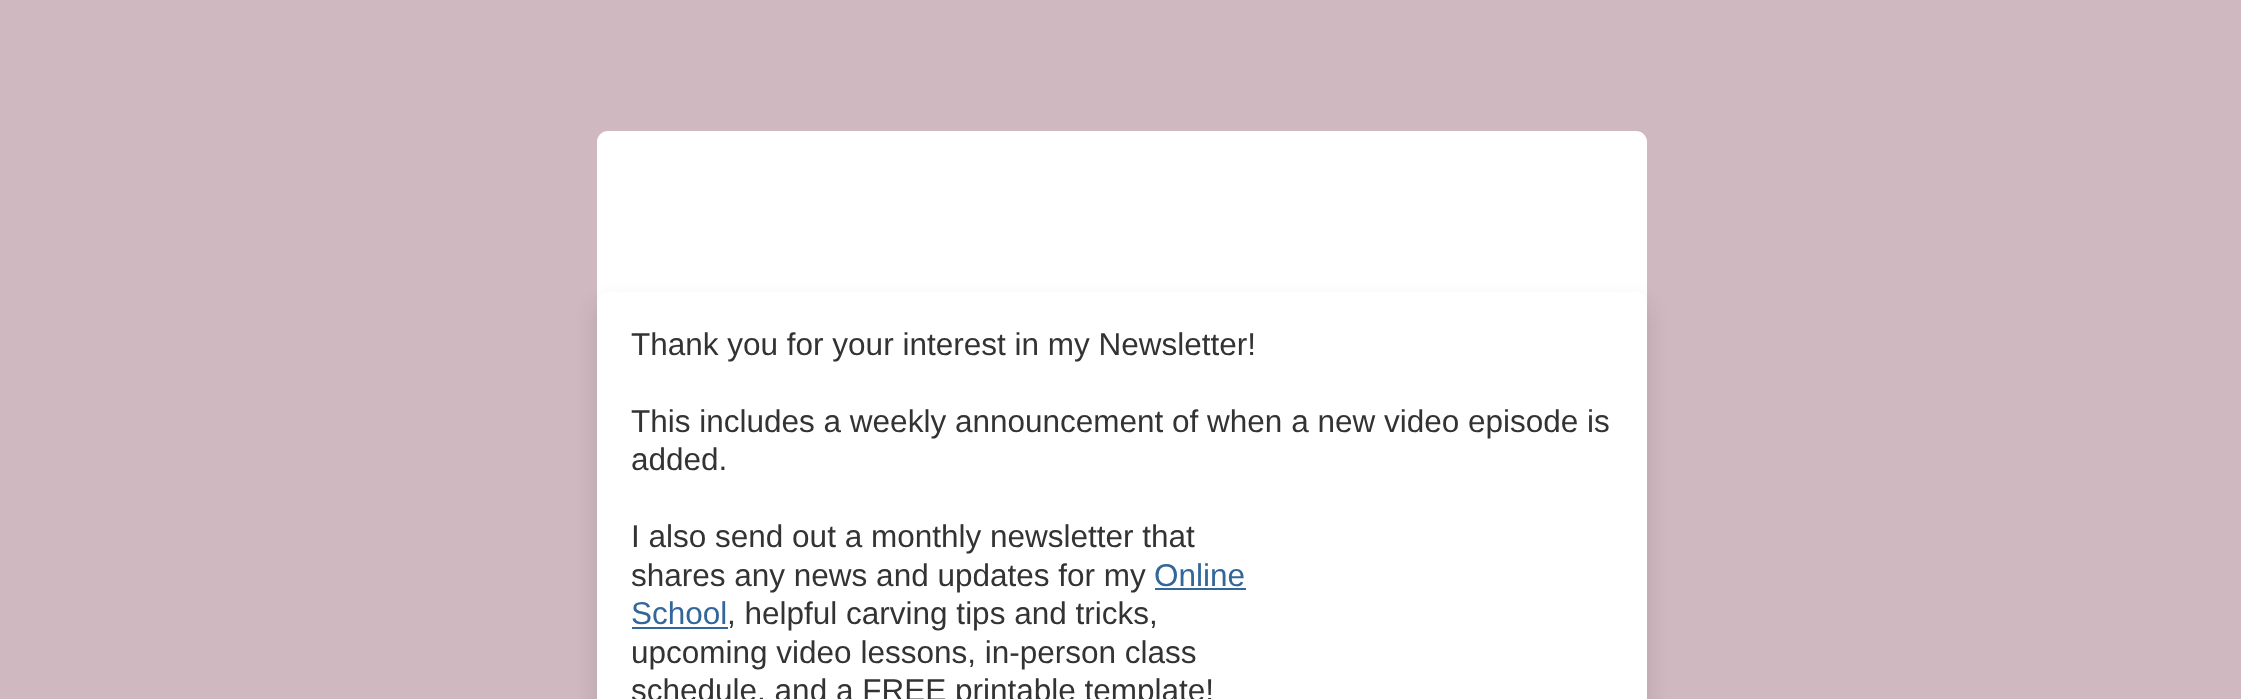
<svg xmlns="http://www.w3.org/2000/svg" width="2241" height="699">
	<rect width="100%" height="100%" fill="#CFB8C0" />
	<rect x="597" y="131" width="1050" height="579" rx="11" fill="#FFFFFF" />
	<rect x="597" y="303" width="1050" height="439" rx="11" fill="#0D1216" fill-opacity="0.12" filter="blur(10.5px)" />
	<rect x="597" y="292" width="1050" height="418" rx="11" fill="#FFFFFF" />
	<g font-family="Liberation Sans" font-size="31.5" fill="#333333">
		<text x="631" y="355">Thank you for your interest in my Newsletter!</text>
		<text x="631" y="432">This includes a weekly announcement of when a new video episode is</text>
		<text x="631" y="470">added.</text>
		<text x="631" y="547">I also send out a monthly newsletter that</text>
		<text x="631" y="586">shares any news and updates for my</text>
	</g>
	<text x="1154" y="586" font-family="Liberation Sans" font-size="31.5" fill="#336699">Online</text>
	<rect x="1155" y="588" width="91" height="2" fill="#336699" />
	<text x="631" y="624" font-family="Liberation Sans" font-size="31.5" fill="#336699">School</text>
	<text x="727" y="624" font-family="Liberation Sans" font-size="31.5" fill="#333333">, helpful carving tips and tricks,</text>
	<rect x="632" y="627" width="96" height="2" fill="#336699" />
	<g font-family="Liberation Sans" font-size="31.5" fill="#333333">
		<text x="631" y="663">upcoming video lessons, in-person class</text>
		<text x="631" y="701">schedule, and a FREE printable template!</text>
	</g>
</svg>
